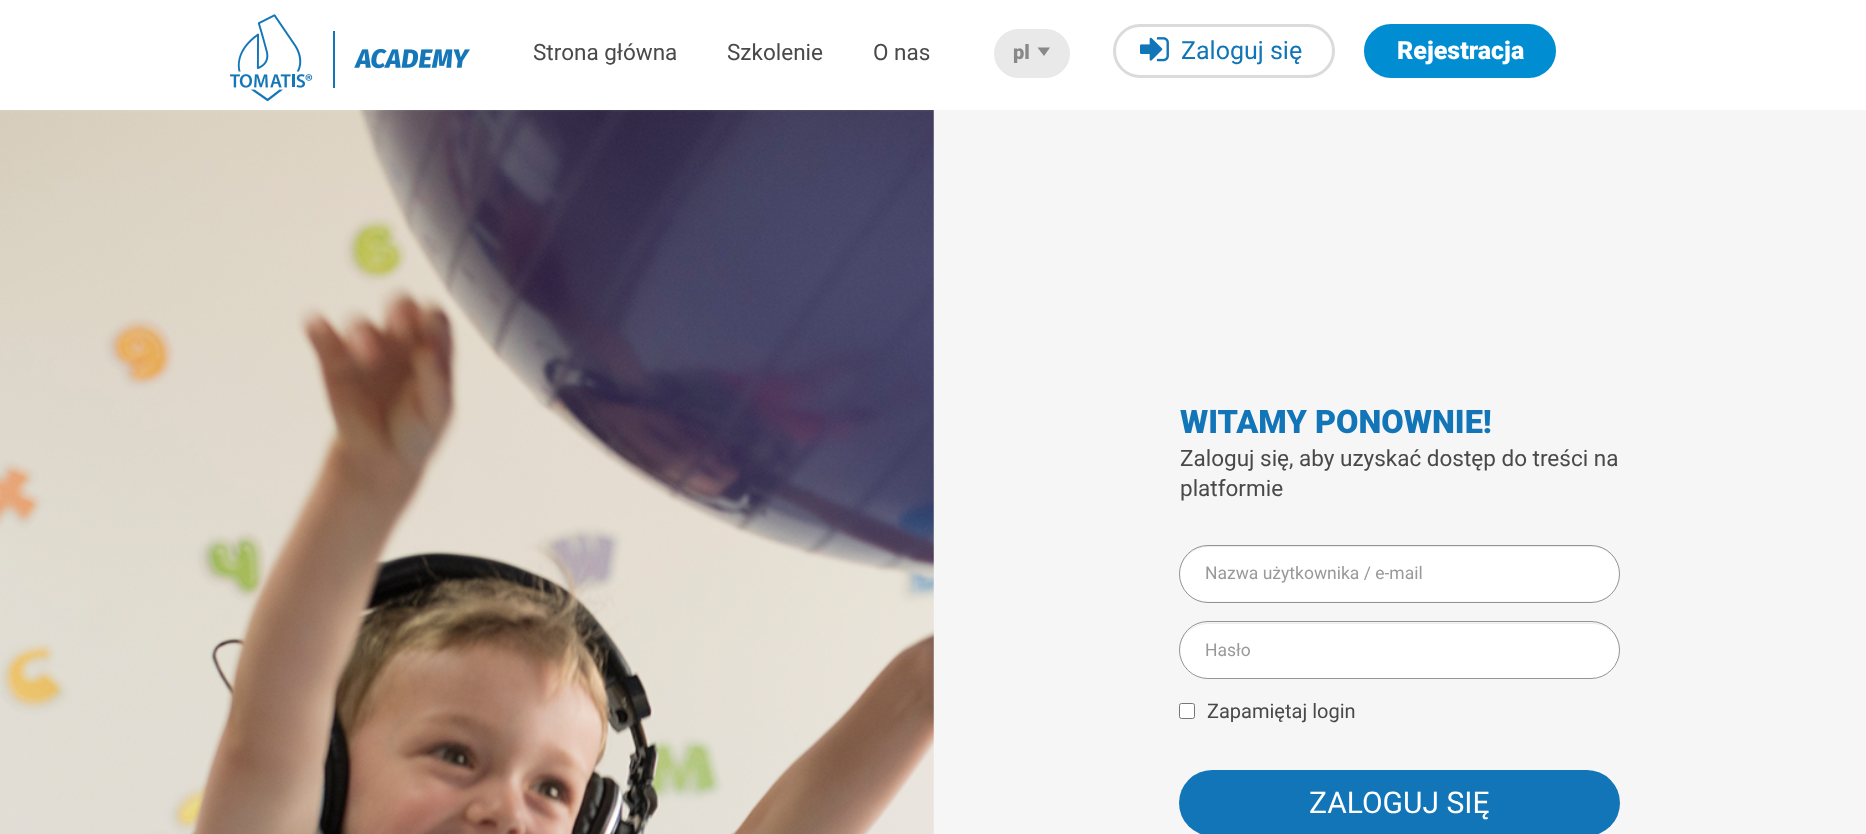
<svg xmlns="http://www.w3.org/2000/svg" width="1866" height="834">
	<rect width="100%" height="100%" fill="#FFFFFF" />
	<image x="230" y="14" width="240" height="88" href="assets/img1.png" />
	<g font-family="Roboto" font-size="22.5" fill="#494949">
		<text x="533" y="60">Strona główna</text>
		<text x="727" y="60">Szkolenie</text>
		<text x="873" y="60">O nas</text>
	</g>
	<rect x="995.5" y="30.5" width="73" height="46" rx="23" fill="#E9E9E9" stroke="#E9E9E9" stroke-width="3" />
	<text x="1013" y="59" font-family="Roboto" font-size="20" font-weight="900" fill="#888888">pl</text>
	<path d="M1037.5 47.5H1050L1044 56Z" fill="#888888" />
	<rect x="1114.5" y="25.5" width="219" height="51" rx="25.5" fill="none" stroke="#DBDBDB" stroke-width="3" />
	<image x="1140" y="37" width="29" height="25" href="assets/img2.png" />
	<text x="1181" y="59" font-family="Roboto" font-size="25" fill="#1175B7">Zaloguj się</text>
	<rect x="1365.5" y="25.5" width="189" height="51" rx="25.5" fill="#008DD2" stroke="#008DD2" stroke-width="3" />
	<text x="1397" y="59" font-family="Roboto" font-size="25" font-weight="900" fill="#FFFFFF">Rejestracja</text>
	<rect x="0" y="110" width="1866" height="724" fill="#F6F6F6" />
	<image x="0" y="110" width="934" height="724" href="assets/img3.png" />
	<text x="1180" y="433" font-family="Roboto" font-size="32.5" font-weight="900" fill="#1175B7">WITAMY PONOWNIE!</text>
	<g font-family="Roboto" font-size="22.5" fill="#494949">
		<text x="1180" y="466">Zaloguj się, aby uzyskać dostęp do treści na</text>
		<text x="1180" y="496">platformie</text>
	</g>
	<rect x="1180" y="546" width="439" height="55" rx="27.5" fill="#FFFFFF" />
	<path d="M1208 547H1592C1607 547 1619 560 1619 574C1619 559 1607 546 1592 546H1208C1192 546 1180 559 1180 574C1180 560 1193 547 1208 547Z" fill="#000000" fill-opacity="0.07" />
	<rect x="1179.5" y="545.5" width="440" height="57" rx="28.5" fill="none" stroke="#949494" />
	<text x="1205" y="579" font-family="Roboto" font-size="17.5" fill="#999999">Nazwa użytkownika / e-mail</text>
	<rect x="1180" y="623" width="439" height="55" rx="27.5" fill="#FFFFFF" />
	<path d="M1208 624H1592C1607 624 1619 636 1619 651C1619 636 1607 623 1592 623H1208C1192 623 1180 636 1180 651C1180 636 1193 624 1208 624Z" fill="#000000" fill-opacity="0.07" />
	<rect x="1179.5" y="621.5" width="440" height="57" rx="28.5" fill="none" stroke="#949494" />
	<text x="1205" y="656" font-family="Roboto" font-size="17.5" fill="#999999">Hasło</text>
	<rect x="1179.5" y="703.5" width="15" height="15" rx="2" fill="#FFFFFF" stroke="#767676" />
	<text x="1207" y="718" font-family="Roboto" font-size="20" fill="#494949">Zapamiętaj login</text>
	<rect x="1179" y="770" width="441" height="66" rx="33" fill="#1175B7" />
	<text x="1309" y="813" font-family="Roboto" font-size="30" fill="#FFFFFF">ZALOGUJ SIĘ</text>
</svg>
